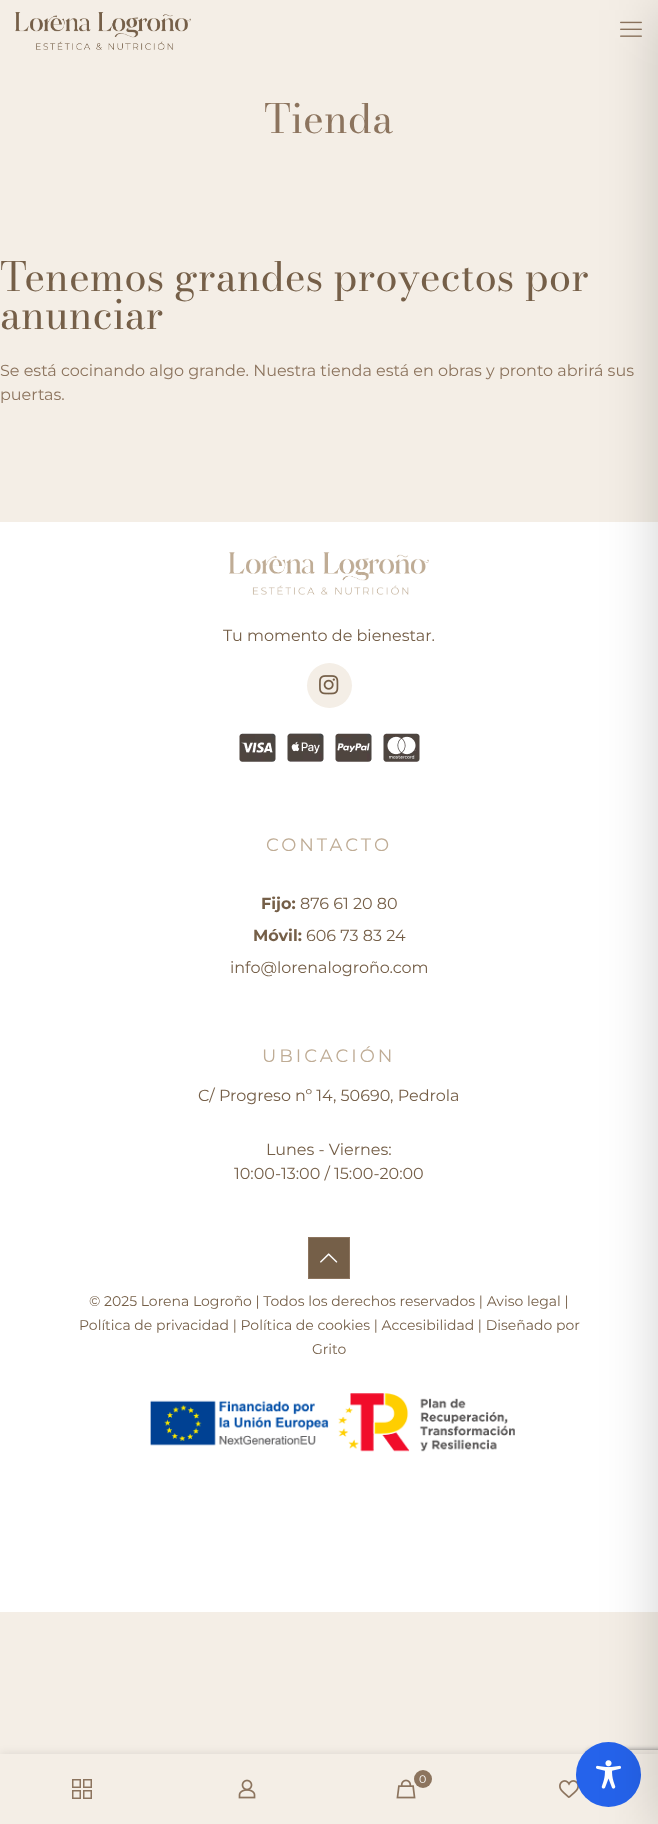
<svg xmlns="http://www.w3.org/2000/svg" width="658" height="1824">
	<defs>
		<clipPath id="clip1"><path d="M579 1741H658V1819H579ZM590 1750H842C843 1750 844 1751 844 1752V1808C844 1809 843 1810 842 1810H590C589 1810 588 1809 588 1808V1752C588 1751 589 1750 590 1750Z" clip-rule="evenodd" /></clipPath>
	</defs>
	<rect width="100%" height="100%" fill="#F4EEE6" />
	<image x="620" y="21" width="22" height="16" href="assets/img2.png" />
	<rect x="0" y="522" width="658" height="1090" fill="#FFFFFF" />
	<g clip-path="url(#clip1)">
		<rect x="588" y="1750" width="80" height="60" rx="2" fill="#808080" filter="blur(2.5px)" />
	</g>
	<rect x="0" y="1754" width="658" height="70" fill="#000000" fill-opacity="0.1" filter="blur(5px)" />
	<rect x="0" y="1754" width="658" height="70" fill="#F4EEE6" />
	<image x="559" y="1780" width="20" height="18" href="assets/img10.png" />
	<circle cx="608.5" cy="1774.5" r="32.5" fill="#2563EB" />
	<image x="596" y="1760" width="25" height="29" href="assets/img11.png" />
	<rect x="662" y="10" width="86" height="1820" fill="#000000" fill-opacity="0.2" filter="blur(30px)" />
	<image x="15" y="12" width="176" height="38" href="assets/img1.png" />
	<text x="264" y="133" font-family="Bodoni Moda" font-size="40" fill="#8C745E">Tienda</text>
	<g font-family="Bodoni Moda" font-size="40" fill="#755F48">
		<text x="0" y="291">Tenemos grandes proyectos por</text>
		<text x="0" y="329">anunciar</text>
	</g>
	<g font-family="Montserrat" font-size="16" fill="#8C745E">
		<text x="0" y="376">Se está cocinando algo grande. Nuestra tienda está en obras y pronto abrirá sus</text>
		<text x="0" y="400">puertas.</text>
	</g>
	<image x="229" y="552" width="200" height="43" href="assets/img3.png" />
	<text x="223" y="641" font-family="Montserrat" font-size="16" fill="#755F48">Tu momento de bienestar.</text>
	<circle cx="329.5" cy="685.5" r="22.5" fill="#F4EEE6" />
	<image x="319" y="675" width="20" height="20" href="assets/img4.png" />
	<image x="239" y="733" width="181" height="29" href="assets/img5.png" />
	<text x="266" y="851" font-family="Montserrat" font-size="18" letter-spacing="3" fill="#BFAC95">CONTACTO</text>
	<text x="261" y="909" font-family="Montserrat" font-size="16" font-weight="700" fill="#755F48">Fijo:</text>
	<text x="300" y="909" font-family="Montserrat" font-size="16" fill="#755F48">876 61 20 80</text>
	<text x="253" y="941" font-family="Montserrat" font-size="16" font-weight="700" fill="#755F48">Móvil:</text>
	<g font-family="Montserrat" font-size="16" fill="#755F48">
		<text x="306" y="941">606 73 83 24</text>
		<text x="230" y="973">info@lorenalogroño.com</text>
	</g>
	<text x="262" y="1062" font-family="Montserrat" font-size="18" letter-spacing="3" fill="#BFAC95">UBICACIÓN</text>
	<g font-family="Montserrat" font-size="16" fill="#755F48">
		<text x="198" y="1101">C/ Progreso nº 14, 50690, Pedrola</text>
		<text x="266" y="1155">Lunes - Viernes:</text>
		<text x="234" y="1179">10:00-13:00 / 15:00-20:00</text>
	</g>
	<rect x="308.5" y="1237.5" width="41" height="41" fill="#755F48" stroke="#8C745E" />
	<image x="320" y="1253" width="18" height="10" href="assets/img6.png" />
	<g font-family="Montserrat" font-size="14" fill="#755F48">
		<text x="89" y="1306">© 2025 Lorena Logroño | Todos los derechos reservados | Aviso legal |</text>
		<text x="79" y="1330">Política de privacidad | Política de cookies | Accesibilidad | Diseñado por</text>
		<text x="312" y="1354">Grito</text>
	</g>
	<image x="150" y="1393" width="365" height="59" href="assets/img7.png" />
	<rect x="83.75" y="1779.75" width="7.5" height="7.5" fill="none" stroke="#8C745E" stroke-width="1.5" />
	<rect x="72.75" y="1779.75" width="7.5" height="7.5" fill="none" stroke="#8C745E" stroke-width="1.5" />
	<rect x="72.75" y="1790.75" width="7.5" height="7.5" fill="none" stroke="#8C745E" stroke-width="1.5" />
	<rect x="83.75" y="1790.75" width="7.5" height="7.5" fill="none" stroke="#8C745E" stroke-width="1.5" />
	<image x="238" y="1779" width="18" height="20" href="assets/img8.png" />
	<image x="396" y="1779" width="20" height="20" href="assets/img9.png" />
	<circle cx="423" cy="1779" r="9" fill="#8C745E" />
	<text x="419" y="1783" font-family="Montserrat" font-size="11" fill="#FFFFFF">0</text>
</svg>
